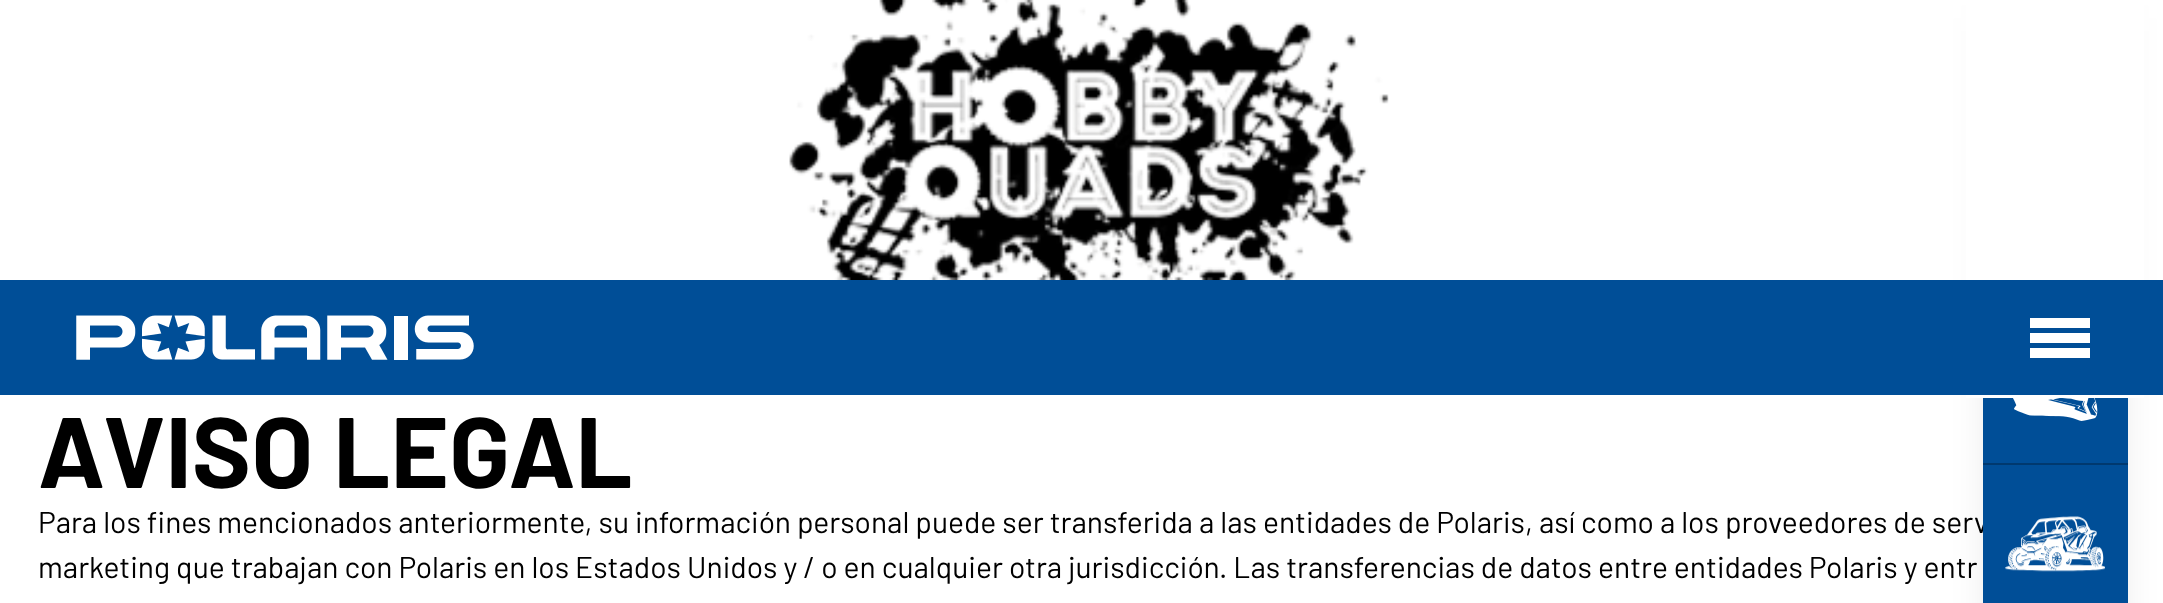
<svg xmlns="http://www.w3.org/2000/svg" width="2163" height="603">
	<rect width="100%" height="100%" fill="#FFFFFF" />
	<rect x="1990" y="18" width="130" height="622" rx="2.5" fill="#000000" fill-opacity="0.1" filter="blur(19px)" />
	<rect x="1966" y="0" width="178" height="280" fill="#FFFFFF" />
	<image x="789" y="0" width="600" height="280" href="assets/img1.png" />
	<rect x="0" y="280" width="2163" height="115" fill="#004E97" />
	<rect x="1966" y="395" width="178" height="3" fill="#FFFFFF" />
	<image x="76" y="315" width="398" height="45" href="assets/img2.png" />
	<rect x="2030" y="318" width="60" height="10" fill="#FFFFFF" />
	<rect x="2030" y="333" width="60" height="10" fill="#FFFFFF" />
	<rect x="2030" y="348" width="60" height="10" fill="#FFFFFF" />
	<text x="38" y="488" font-family="Barlow" font-size="100" font-weight="700" fill="#000000">AVISO LEGAL</text>
	<g font-family="Barlow" font-size="30" fill="#000000">
		<text x="38" y="533">Para los fines mencionados anteriormente, su información personal puede ser transferida a las entidades de Polaris, así como a los proveedores de serv</text>
		<text x="38" y="578">marketing que trabajan con Polaris en los Estados Unidos y / o en cualquier otra jurisdicción. Las transferencias de datos entre entidades Polaris y entr</text>
	</g>
	<rect x="1983" y="463" width="145" height="2" fill="#00396F" />
	<rect x="1983" y="398" width="145" height="65" fill="#004E97" />
	<image x="2013" y="398" width="85" height="23" href="assets/img3.png" />
	<rect x="1983" y="465" width="145" height="138" fill="#004E97" />
	<image x="2005" y="516" width="100" height="56" href="assets/img4.png" />
</svg>
